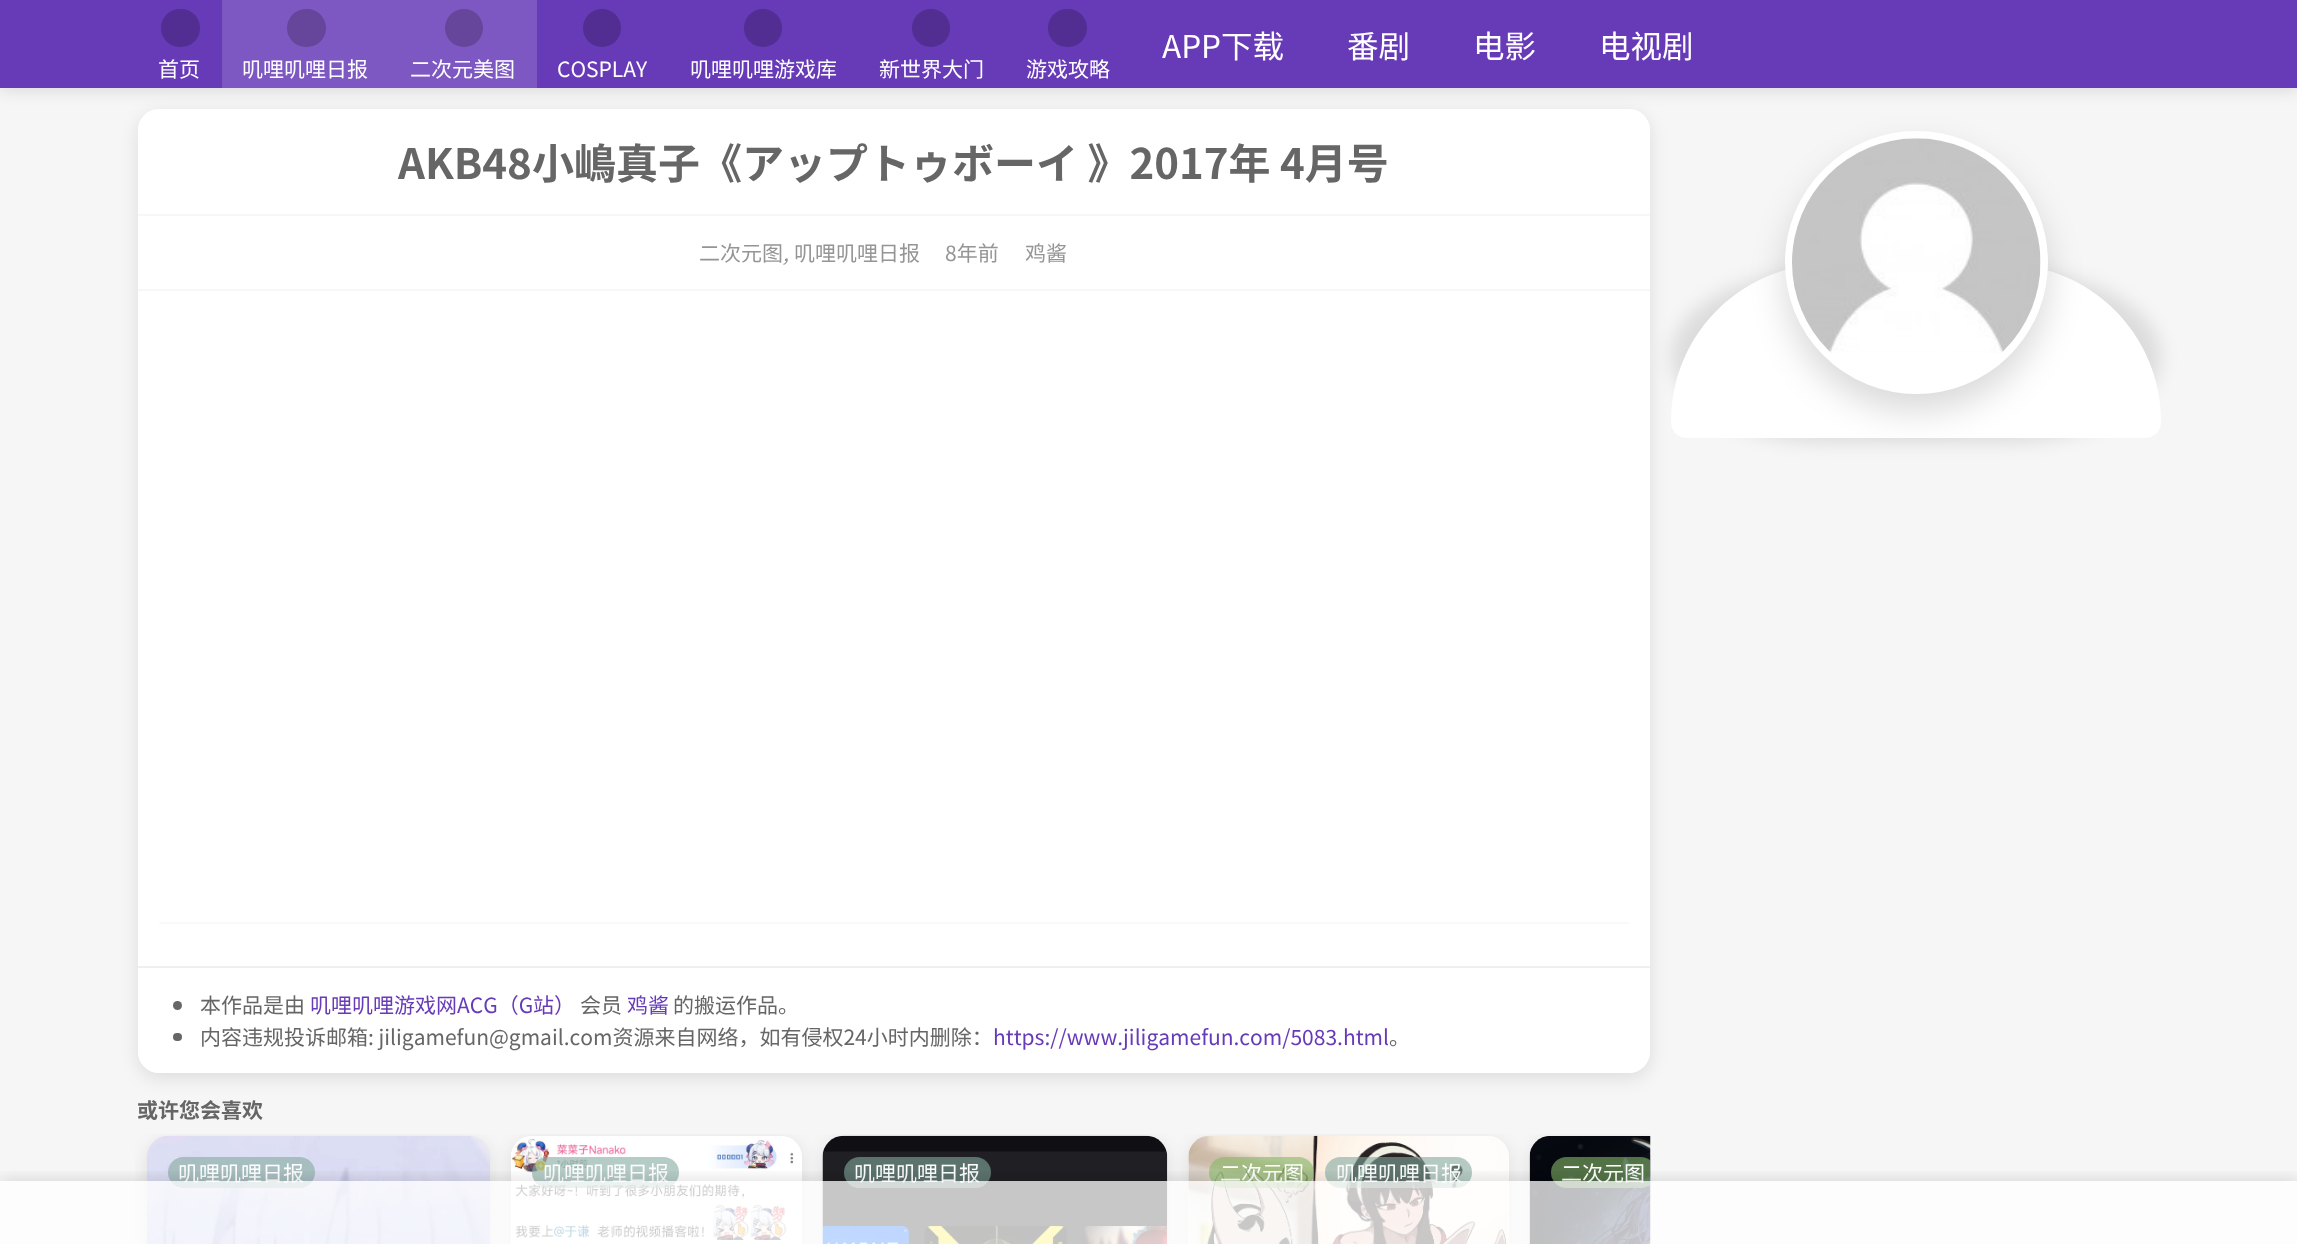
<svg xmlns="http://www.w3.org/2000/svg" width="2297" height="1244">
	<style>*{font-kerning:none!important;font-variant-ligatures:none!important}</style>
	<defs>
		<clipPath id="clip1"><path d="M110 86H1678V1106H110ZM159 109H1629C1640.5 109 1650 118.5 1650 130V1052C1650 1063.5 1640.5 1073 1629 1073H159C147.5 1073 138 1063.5 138 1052V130C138 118.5 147.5 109 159 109Z" clip-rule="evenodd" /></clipPath>
		<clipPath id="clip2"><rect x="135" y="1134" width="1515" height="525" /></clipPath>
		<clipPath id="clip3"><path d="M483 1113H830V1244H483ZM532 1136H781C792.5 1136 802 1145.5 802 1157V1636C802 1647.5 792.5 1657 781 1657H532C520.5 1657 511 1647.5 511 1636V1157C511 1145.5 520.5 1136 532 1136Z" clip-rule="evenodd" /></clipPath>
		<clipPath id="clip4"><rect x="135" y="1134" width="1515" height="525" /></clipPath>
		<clipPath id="clip5"><path d="M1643 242H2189V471H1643ZM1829 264H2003C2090.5 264 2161 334.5 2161 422C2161 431 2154 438 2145 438H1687C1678 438 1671 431 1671 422C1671 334.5 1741.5 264 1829 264Z" clip-rule="evenodd" /></clipPath>
		<clipPath id="clip6"><rect x="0" y="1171" width="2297" height="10" /></clipPath>
	</defs>
	<rect width="100%" height="100%" fill="#F6F6F6" />
	<g clip-path="url(#clip1)">
		<rect x="138" y="114" width="1512" height="964" rx="21" fill="#000000" fill-opacity="0.1" filter="blur(9px)" />
	</g>
	<rect x="138" y="109" width="1512" height="964" rx="21" fill="#FFFFFF" fill-opacity="0.95" />
	<rect x="0" y="0" width="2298" height="88" fill="#000000" fill-opacity="0.15" filter="blur(9px)" />
	<rect x="0" y="0" width="2297" height="88" fill="#673AB7" />
	<g font-family="Noto Sans CJK SC" font-size="31.5" fill="#FFFFFF">
		<text x="1162" y="58">APP下载</text>
		<text x="1347" y="58">番剧</text>
		<text x="1473" y="58">电影</text>
		<text x="1599" y="58">电视剧</text>
	</g>
	<rect x="161" y="9" width="39" height="38" rx="19" fill="#522E92" />
	<text x="158" y="77" font-family="Noto Sans CJK SC" font-size="21" fill="#FFFFFF">首页</text>
	<rect x="222" y="0" width="315" height="88" fill="#7E58C2" />
	<rect x="287" y="9" width="39" height="38" rx="19" fill="#65469B" />
	<text x="242" y="77" font-family="Noto Sans CJK SC" font-size="21" fill="#FFFFFF">叽哩叽哩日报</text>
	<circle cx="464" cy="28" r="19" fill="#65469B" />
	<text x="410" y="77" font-family="Noto Sans CJK SC" font-size="21" fill="#FFFFFF">二次元美图</text>
	<circle cx="602" cy="28" r="19" fill="#522E92" />
	<text x="557" y="77" font-family="Noto Sans CJK SC" font-size="21" fill="#FFFFFF">COSPLAY</text>
	<circle cx="763" cy="28" r="19" fill="#522E92" />
	<text x="690" y="77" font-family="Noto Sans CJK SC" font-size="21" fill="#FFFFFF">叽哩叽哩游戏库</text>
	<circle cx="931" cy="28" r="19" fill="#522E92" />
	<text x="879" y="77" font-family="Noto Sans CJK SC" font-size="21" fill="#FFFFFF">新世界大门</text>
	<rect x="1048" y="9" width="39" height="38" rx="19" fill="#522E92" />
	<text x="1026" y="77" font-family="Noto Sans CJK SC" font-size="21" fill="#FFFFFF">游戏攻略</text>
	<text x="398" y="179" font-family="Noto Sans CJK SC" font-size="42" font-weight="700" fill="#666666">AKB48小嶋真子《アップトゥボーイ 》2017年 4月号</text>
	<rect x="138" y="214" width="1512" height="2" fill="#F7F7F7" />
	<rect x="138" y="289" width="1512" height="2" fill="#F7F7F7" />
	<text x="699" y="261" font-family="Noto Sans CJK SC" font-size="21" fill="#959595">二次元图</text>
	<text x="783" y="261" font-family="Noto Sans CJK SC" font-size="21" font-style="italic" fill="#959595">,</text>
	<g font-family="Noto Sans CJK SC" font-size="21" fill="#959595">
		<text x="794" y="261">叽哩叽哩日报</text>
		<text x="945" y="261">8年前</text>
		<text x="1025" y="261">鸡酱</text>
	</g>
	<rect x="159" y="922" width="1470" height="2" fill="#F9F9F9" />
	<rect x="138" y="966" width="1512" height="2" fill="#EFEFEF" />
	<circle cx="177.5" cy="1005.5" r="4.5" fill="#666666" />
	<text x="200" y="1013" font-family="Noto Sans CJK SC" font-size="21" fill="#666666">本作品是由</text>
	<text x="310" y="1013" font-family="Noto Sans CJK SC" font-size="21" fill="#673AB7">叽哩叽哩游戏网ACG（G站）</text>
	<text x="580" y="1013" font-family="Noto Sans CJK SC" font-size="21" fill="#666666">会员</text>
	<text x="627" y="1013" font-family="Noto Sans CJK SC" font-size="21" fill="#673AB7">鸡酱</text>
	<text x="673" y="1013" font-family="Noto Sans CJK SC" font-size="21" fill="#666666">的搬运作品。</text>
	<rect x="173" y="1033" width="9" height="8" rx="4" fill="#666666" />
	<text x="200" y="1045" font-family="Noto Sans CJK SC" font-size="21" fill="#666666">内容违规投诉邮箱: jiligamefun@gmail.com资源来自网络，如有侵权24小时内删除：</text>
	<text x="993" y="1045" font-family="Noto Sans CJK SC" font-size="21" fill="#673AB7">https://www.jiligamefun.com/5083.html</text>
	<text x="1389" y="1045" font-family="Noto Sans CJK SC" font-size="21" fill="#666666">。</text>
	<text x="137" y="1118" font-family="Noto Sans CJK SC" font-size="21" font-weight="700" fill="#666666">或许您会喜欢</text>
	<g clip-path="url(#clip2)">
		<rect x="147" y="1141" width="343" height="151" rx="21" fill="#000000" fill-opacity="0.1" filter="blur(9px)" />
	</g>
	<image x="147" y="1136" width="343" height="108" href="assets/img1.png" />
	<rect x="168" y="1157" width="147" height="31" rx="15.5" fill="#84A89E" fill-opacity="0.6" />
	<text x="178" y="1181" font-family="Noto Sans CJK SC" font-size="21" fill="#FFFFFF">叽哩叽哩日报</text>
	<g clip-path="url(#clip2)">
		<g clip-path="url(#clip3)">
			<rect x="511" y="1141" width="291" height="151" rx="21" fill="#000000" fill-opacity="0.1" filter="blur(9px)" />
		</g>
	</g>
	<rect x="511" y="1136" width="291" height="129" rx="21" fill="#FFFFFF" fill-opacity="0.95" />
	<image x="511" y="1137" width="283" height="104" href="assets/img2.png" />
	<rect x="532" y="1157" width="147" height="31" rx="15.5" fill="#84A89E" fill-opacity="0.6" />
	<text x="543" y="1181" font-family="Noto Sans CJK SC" font-size="21" fill="#FFFFFF">叽哩叽哩日报</text>
	<g clip-path="url(#clip2)">
		<rect x="823" y="1141" width="344" height="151" rx="21" fill="#000000" fill-opacity="0.1" filter="blur(9px)" />
	</g>
	<image x="822" y="1135" width="346" height="109" href="assets/img3.png" />
	<rect x="844" y="1157" width="147" height="31" rx="15.5" fill="#5C726D" />
	<text x="854" y="1181" font-family="Noto Sans CJK SC" font-size="21" fill="#FFFFFF">叽哩叽哩日报</text>
	<g clip-path="url(#clip2)">
		<rect x="1188" y="1141" width="321" height="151" rx="21" fill="#000000" fill-opacity="0.1" filter="blur(9px)" />
	</g>
	<rect x="1188" y="1136" width="321" height="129" rx="21" fill="#FFFFFF" fill-opacity="0.95" />
	<image x="1188" y="1135" width="321" height="109" href="assets/img4.png" />
	<rect x="1209" y="1157" width="105" height="31" rx="15.5" fill="#86B767" fill-opacity="0.6" />
	<text x="1220" y="1181" font-family="Noto Sans CJK SC" font-size="21" fill="#FFFFFF">二次元图</text>
	<rect x="1325" y="1157" width="147" height="31" rx="15.5" fill="#84A89E" fill-opacity="0.6" />
	<text x="1336" y="1181" font-family="Noto Sans CJK SC" font-size="21" fill="#FFFFFF">叽哩叽哩日报</text>
	<g clip-path="url(#clip2)">
		<rect x="1530" y="1141" width="306" height="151" rx="21" fill="#000000" fill-opacity="0.1" filter="blur(9px)" />
	</g>
	<image x="1529" y="1136" width="122" height="108" href="assets/img5.png" />
	<g clip-path="url(#clip4)">
		<rect x="1551" y="1157" width="105" height="31" rx="15.5" fill="#86B767" fill-opacity="0.6" />
	</g>
	<text x="1561" y="1181" font-family="Noto Sans CJK SC" font-size="21" fill="#FFFFFF">二次元图</text>
	<g clip-path="url(#clip5)">
		<rect x="1671" y="270" width="490" height="173" rx="158" fill="#000000" fill-opacity="0.1" filter="blur(9px)" />
	</g>
	<path d="M1829 264H2003C2090.5 264 2161 334.5 2161 422C2161 431 2154 438 2145 438H1687C1678 438 1671 431 1671 422C1671 334.5 1741.5 264 1829 264Z" fill="#FFFFFF" fill-opacity="0.95" />
	<rect x="1785" y="149" width="263" height="262" rx="131" fill="#000000" fill-opacity="0.15" filter="blur(17.5px)" />
	<circle cx="1916.5" cy="262.5" r="128" fill="#FFFFFF" stroke="#FFFFFF" stroke-width="7" />
	<image x="1792" y="138" width="249" height="215" href="assets/img6.png" />
	<g clip-path="url(#clip6)">
		<rect x="0" y="1181" width="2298" height="63" fill="#000000" fill-opacity="0.15" filter="blur(9px)" />
	</g>
	<rect x="0" y="1181" width="2297" height="63" fill="#FFFFFF" fill-opacity="0.75" />
</svg>
